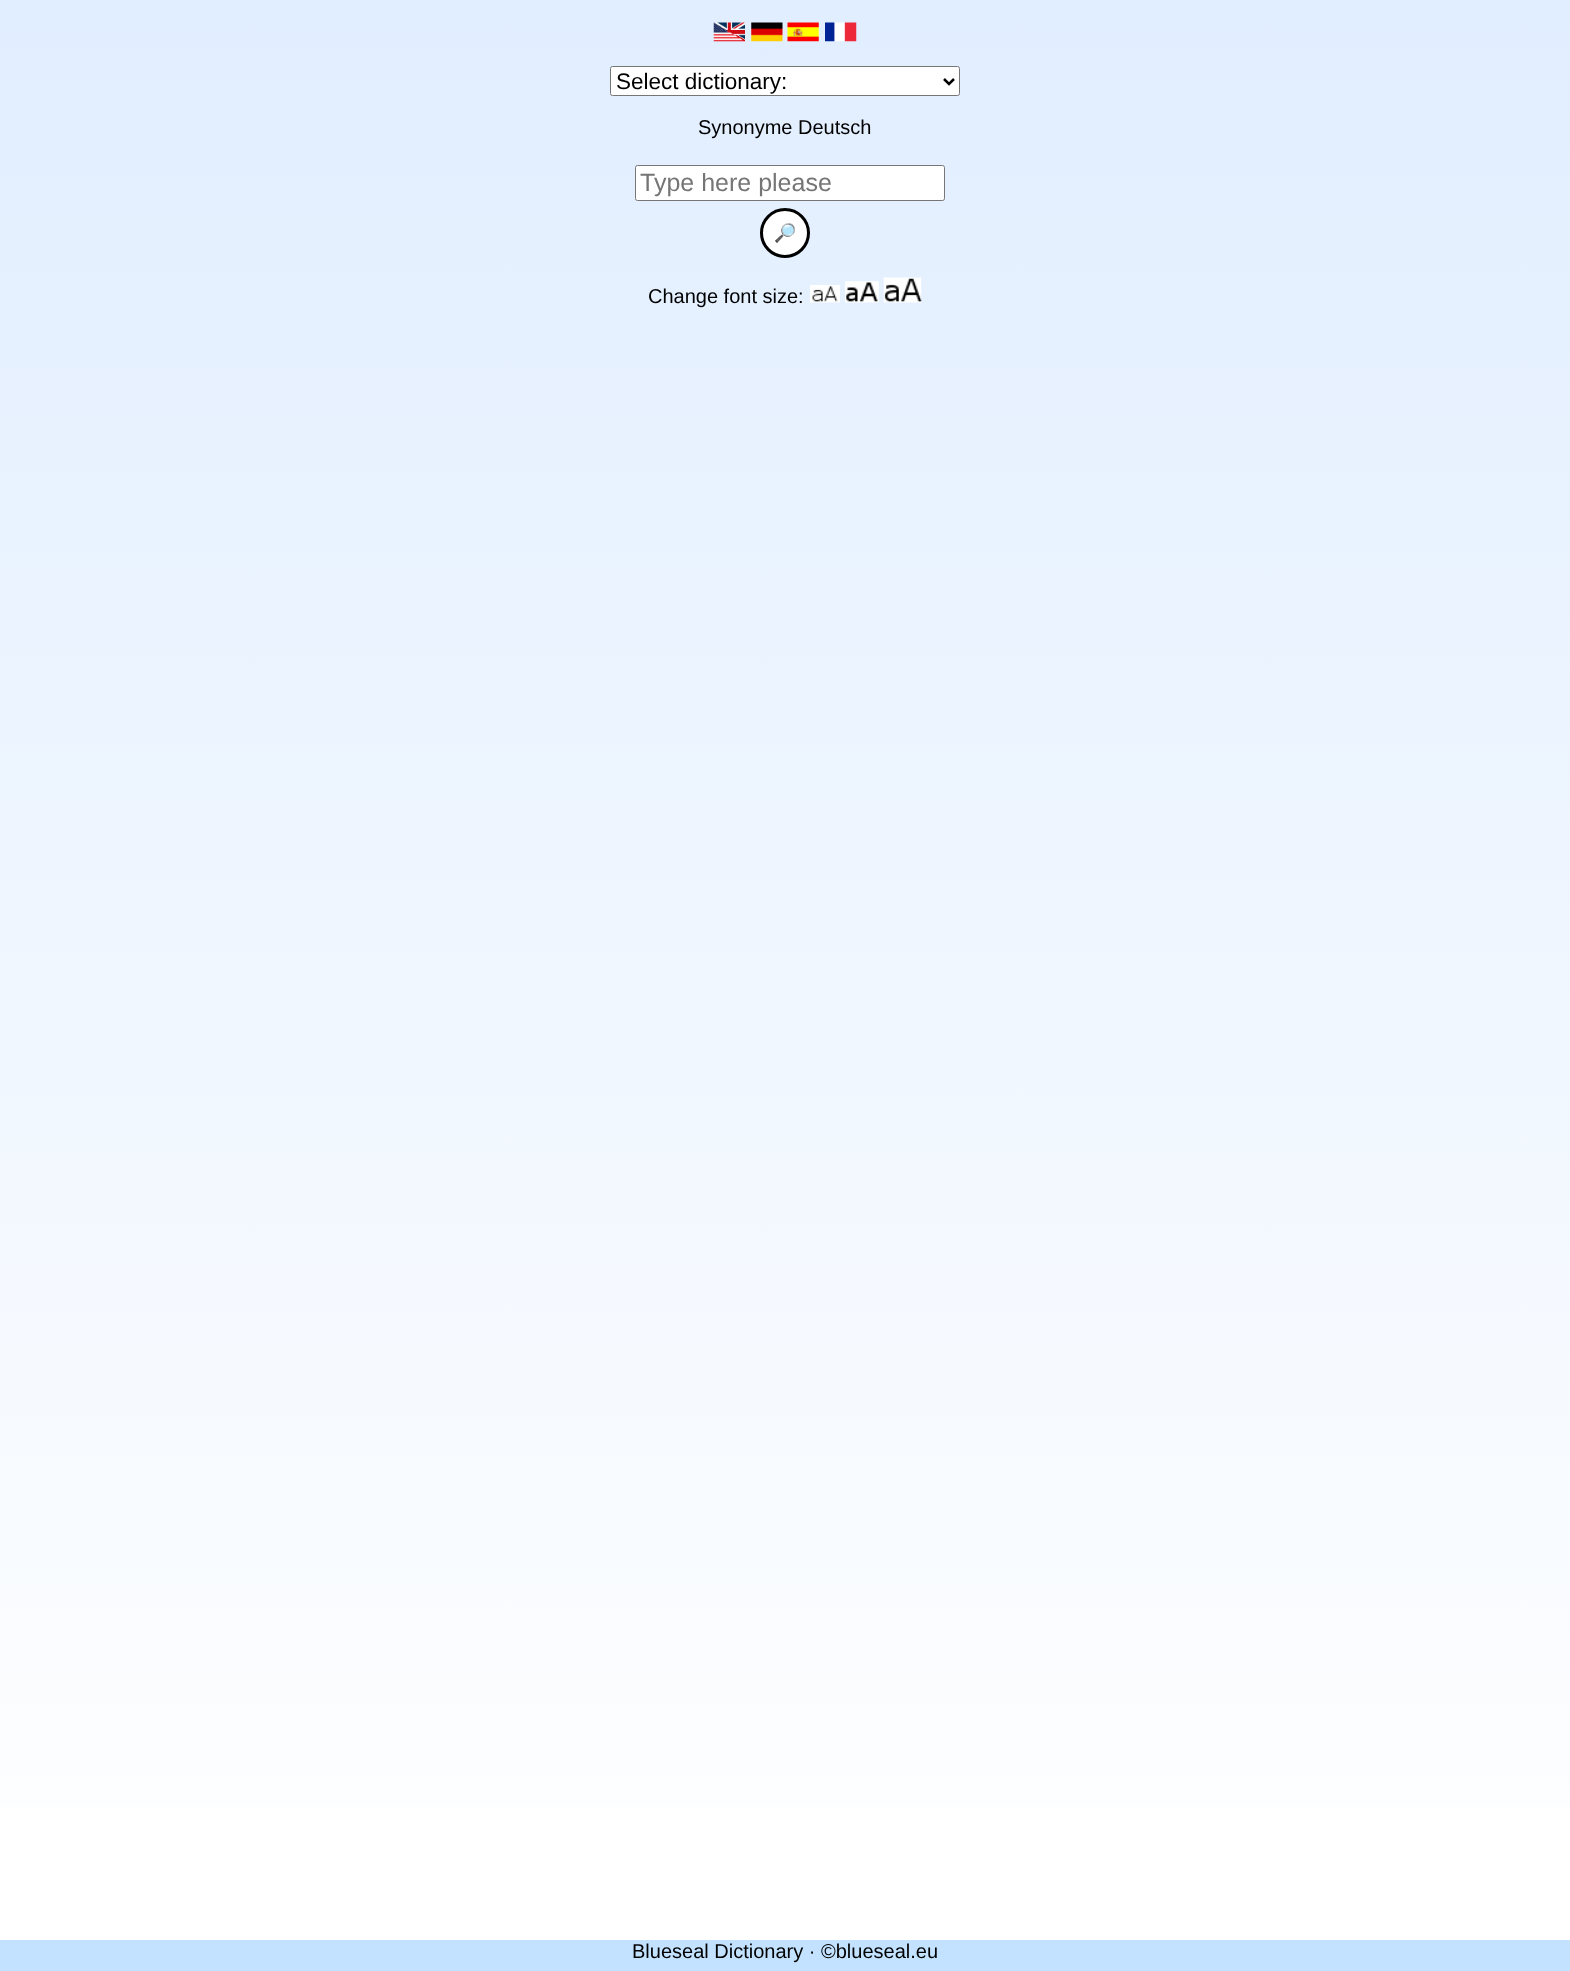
<svg xmlns="http://www.w3.org/2000/svg" width="1570" height="1971">
	<defs>
		<linearGradient id="g1" gradientUnits="userSpaceOnUse" x1="785" y1="0" x2="785" y2="1971"><stop offset="0" stop-color="#E1EEFF" /><stop offset="1" stop-color="#FFFFFF" /></linearGradient>
	</defs>
	<rect width="100%" height="100%" fill="#FFFFFF" />
	<rect x="0" y="0" width="1570" height="1807" fill="url(#g1)" />
	<image x="713" y="22" width="32" height="20" href="assets/img1.png" />
	<image x="751" y="22" width="32" height="20" href="assets/img2.png" />
	<image x="787" y="22" width="32" height="20" href="assets/img3.png" />
	<image x="825" y="22" width="32" height="20" href="assets/img4.png" />
	<rect x="610.5" y="66.5" width="349" height="29" rx="2" fill="#FFFFFF" stroke="#767676" />
	<path d="M944 79L949 84L954 79" fill="none" stroke="#000000" stroke-width="2.5" />
	<text x="616" y="89" font-family="Liberation Sans" font-size="22.5" fill="#000000">Select dictionary:</text>
	<text x="698" y="134" font-family="Liberation Sans" font-size="20" fill="#000000">Synonyme Deutsch</text>
	<rect x="635.5" y="165.5" width="309" height="35" rx="2" fill="#FFFFFF" stroke="#767676" />
	<text x="640" y="191" font-family="Liberation Sans" font-size="25" fill="#757575">Type here please</text>
	<circle cx="785" cy="233" r="23.5" fill="#FFFFFF" stroke="#000000" stroke-width="3" />
	<text x="774" y="239" font-family="Noto Color Emoji" font-size="18" font-weight="700" fill="#E84118">🔎</text>
	<text x="648" y="303" font-family="Liberation Sans" font-size="20" fill="#000000">Change font size:</text>
	<image x="810" y="285" width="30" height="18" href="assets/img5.png" />
	<image x="845" y="281" width="34" height="22" href="assets/img6.png" />
	<image x="883" y="277" width="39" height="26" href="assets/img7.png" />
	<rect x="0" y="1940" width="1570" height="31" fill="#C2E2FF" />
	<text x="632" y="1958" font-family="Liberation Sans" font-size="20" fill="#000000">Blueseal Dictionary · ©blueseal.eu</text>
</svg>
